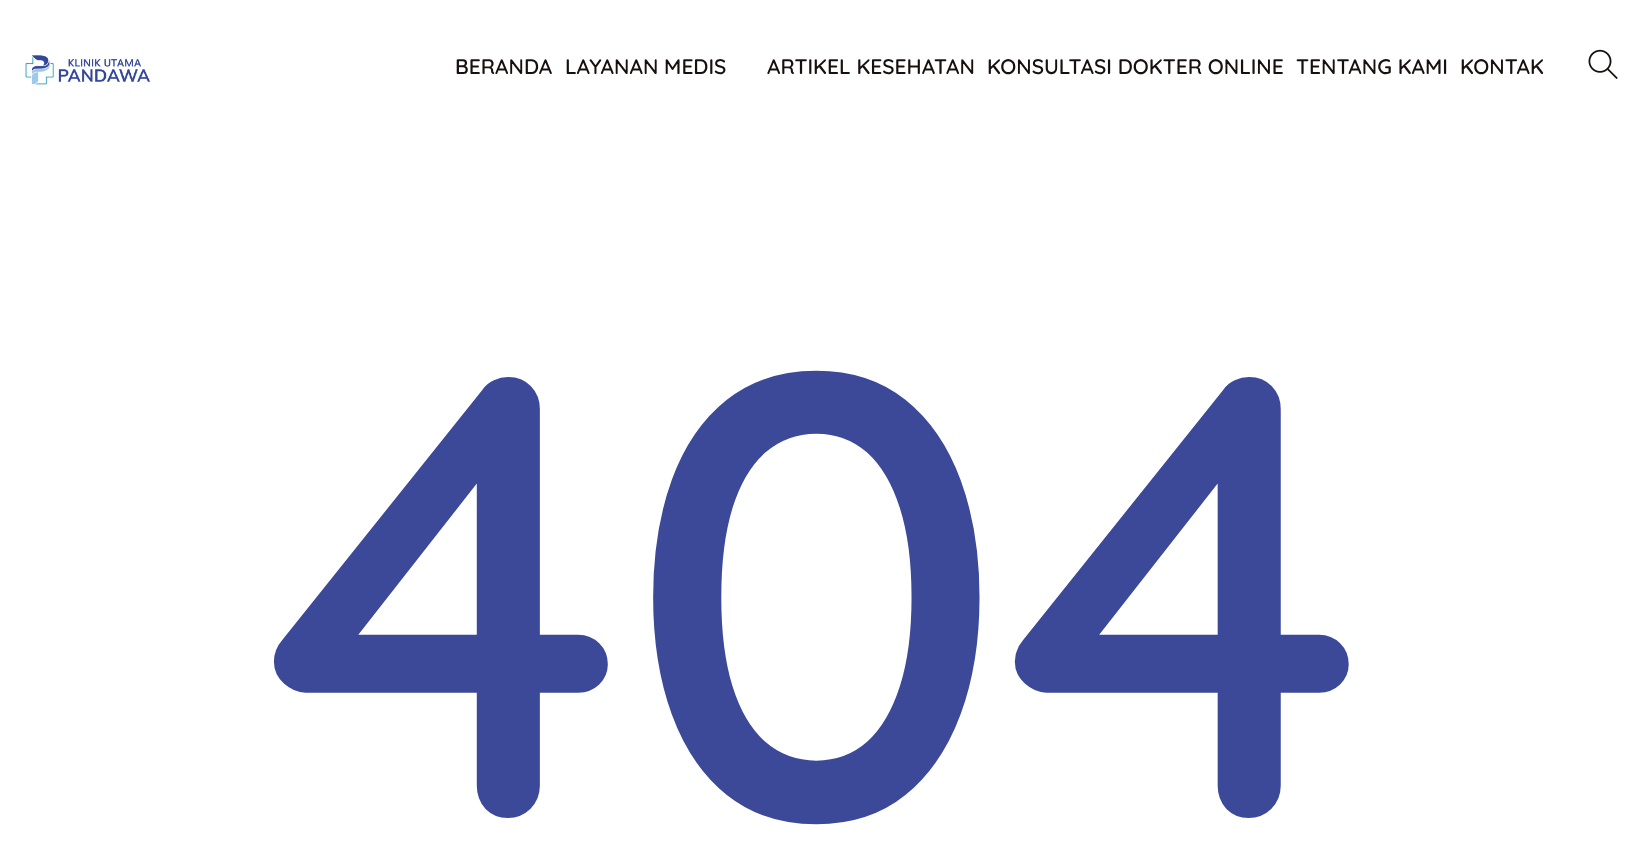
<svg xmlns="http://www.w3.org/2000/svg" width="1633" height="852">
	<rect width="100%" height="100%" fill="#FFFFFF" />
	<image x="25" y="55" width="126" height="30" href="assets/img1.png" />
	<g font-family="Quicksand" font-size="21" font-weight="600" fill="#18100F">
		<text x="455" y="74">BERANDA</text>
		<text x="565" y="74">LAYANAN MEDIS</text>
		<text x="767" y="74">ARTIKEL KESEHATAN</text>
		<text x="987" y="74">KONSULTASI DOKTER ONLINE</text>
		<text x="1296" y="74">TENTANG KAMI</text>
		<text x="1460" y="74">KONTAK</text>
	</g>
	<image x="1588" y="49" width="30" height="30" href="assets/img2.png" />
	<text x="267" y="818" font-family="Quicksand" font-size="630" font-weight="600" fill="#3C4998">404</text>
</svg>
